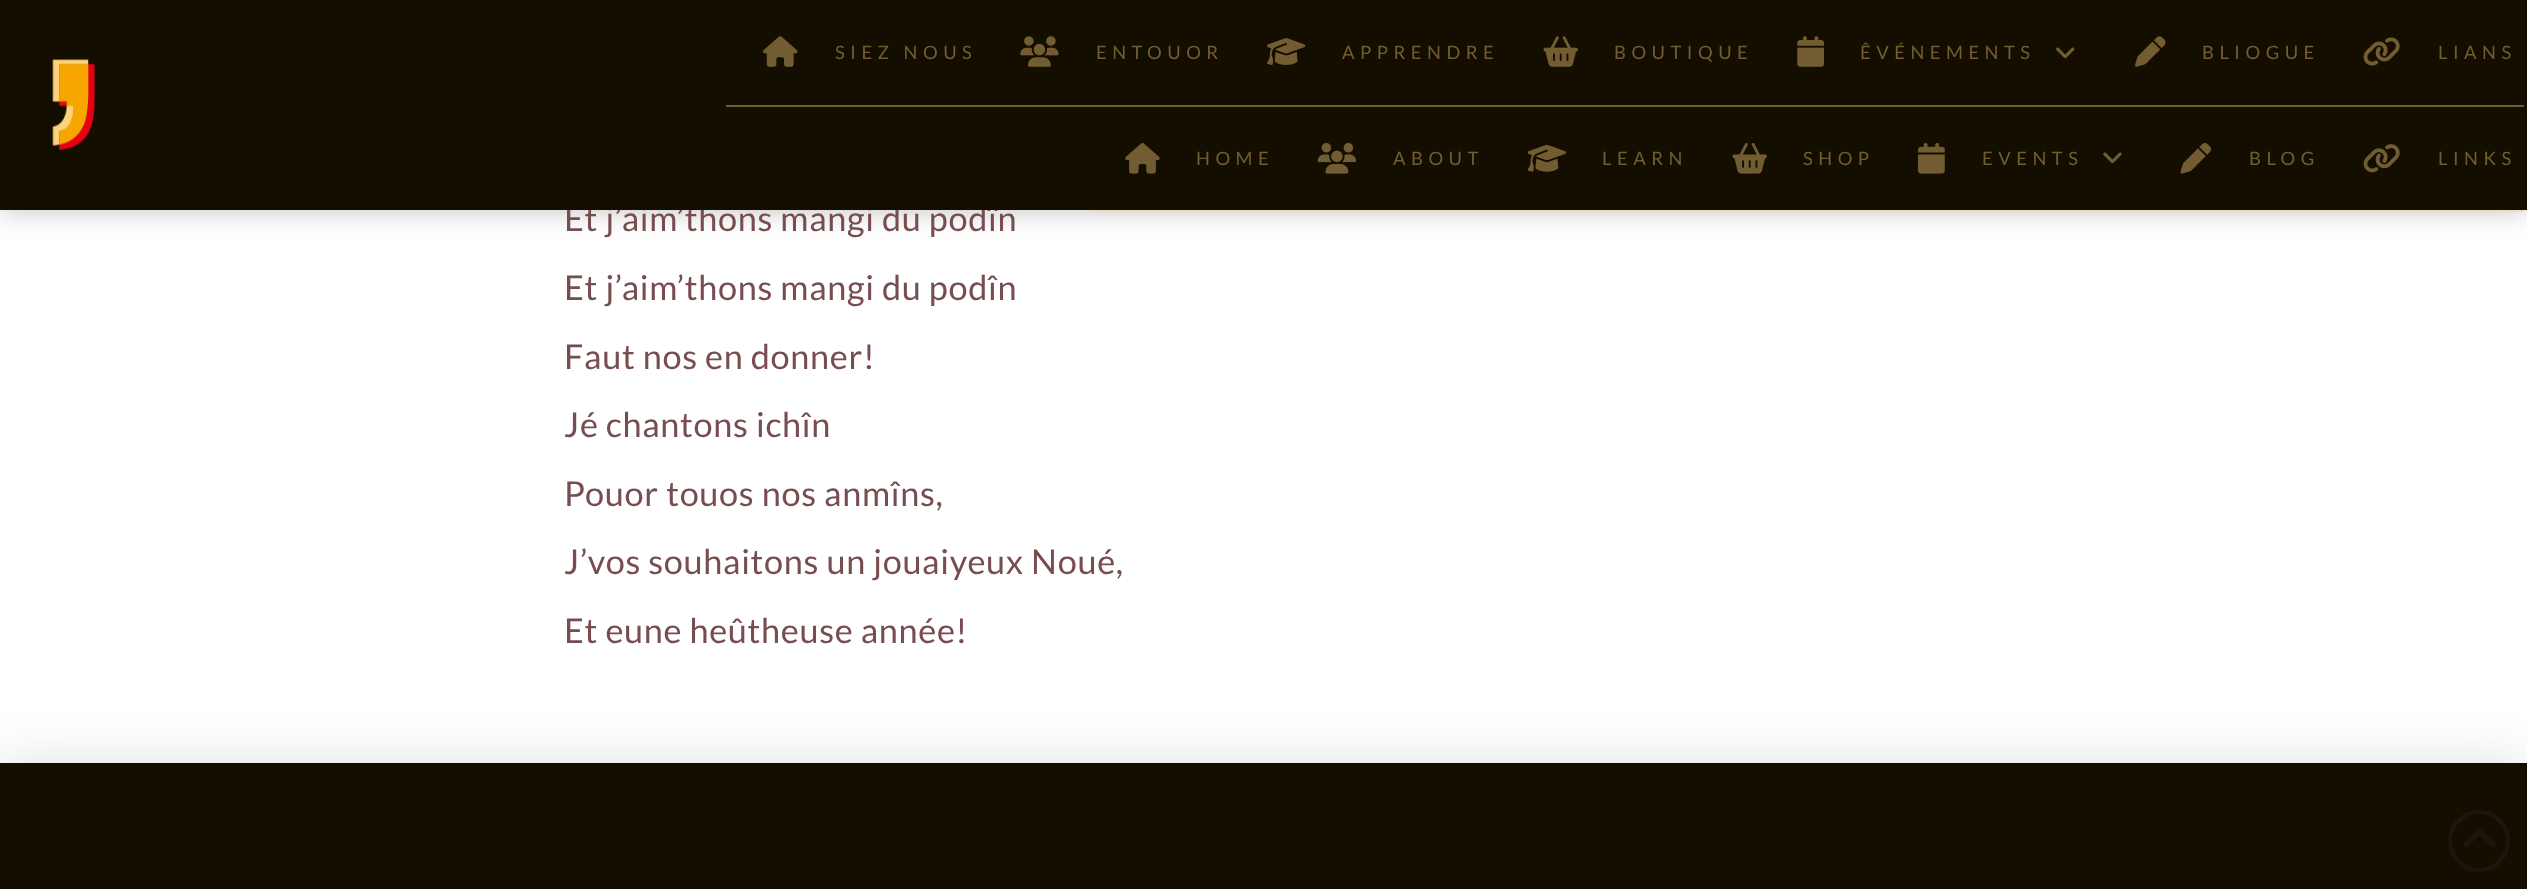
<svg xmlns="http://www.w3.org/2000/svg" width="2527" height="889">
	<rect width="100%" height="100%" fill="#FFFFFF" />
	<rect x="0" y="0" width="2527" height="210" fill="#000000" fill-opacity="0.25" filter="blur(14px)" />
	<text x="564" y="231" font-family="Lato" font-size="34.25" letter-spacing="0.7" fill="#774D50">Et j’aim’thons mangi du podîn</text>
	<rect x="0" y="0" width="2527" height="210" fill="#140E00" />
	<image x="52" y="59" width="43" height="92" href="assets/img1.png" />
	<rect x="726" y="105" width="1798" height="2" fill="#725D31" />
	<image x="763" y="36" width="35" height="31" href="assets/img2.png" />
	<text x="835" y="59" font-family="Lato" font-size="18.4" letter-spacing="5.5" fill="#725D31">SIEZ NOUS</text>
	<image x="1020" y="36" width="39" height="31" href="assets/img3.png" />
	<text x="1096" y="59" font-family="Lato" font-size="18.4" letter-spacing="5.5" fill="#725D31">ENTOUOR</text>
	<image x="1267" y="38" width="39" height="27" href="assets/img4.png" />
	<text x="1342" y="59" font-family="Lato" font-size="18.4" letter-spacing="5.5" fill="#725D31">APPRENDRE</text>
	<image x="1543" y="36" width="35" height="31" href="assets/img5.png" />
	<text x="1614" y="59" font-family="Lato" font-size="18.4" letter-spacing="5.5" fill="#725D31">BOUTIQUE</text>
	<image x="1797" y="36" width="27" height="31" href="assets/img6.png" />
	<text x="1860" y="59" font-family="Lato" font-size="18.4" letter-spacing="5.5" fill="#725D31">ÊVÉNEMENTS</text>
	<image x="2056" y="47" width="19" height="12" href="assets/img7.png" />
	<image x="2135" y="36" width="31" height="31" href="assets/img8.png" />
	<text x="2202" y="59" font-family="Lato" font-size="18.4" letter-spacing="5.5" fill="#725D31">BLIOGUE</text>
	<image x="2363" y="37" width="37" height="29" href="assets/img9.png" />
	<text x="2438" y="59" font-family="Lato" font-size="18.4" letter-spacing="5.5" fill="#725D31">LIANS</text>
	<rect x="1089" y="210" width="1237" height="2" fill="#EDDBB8" />
	<image x="1125" y="143" width="35" height="31" href="assets/img10.png" />
	<text x="1196" y="165" font-family="Lato" font-size="18.4" letter-spacing="5.5" fill="#725D31">HOME</text>
	<image x="1317" y="143" width="39" height="31" href="assets/img11.png" />
	<text x="1393" y="165" font-family="Lato" font-size="18.4" letter-spacing="5.5" fill="#725D31">ABOUT</text>
	<image x="1527" y="144" width="39" height="28" href="assets/img12.png" />
	<text x="1602" y="165" font-family="Lato" font-size="18.4" letter-spacing="5.5" fill="#725D31">LEARN</text>
	<image x="1732" y="143" width="35" height="31" href="assets/img13.png" />
	<text x="1803" y="165" font-family="Lato" font-size="18.4" letter-spacing="5.5" fill="#725D31">SHOP</text>
	<image x="1918" y="143" width="27" height="31" href="assets/img14.png" />
	<text x="1982" y="165" font-family="Lato" font-size="18.4" letter-spacing="5.5" fill="#725D31">EVENTS</text>
	<image x="2103" y="152" width="19" height="12" href="assets/img15.png" />
	<image x="2180" y="143" width="31" height="31" href="assets/img16.png" />
	<text x="2249" y="165" font-family="Lato" font-size="18.4" letter-spacing="5.5" fill="#725D31">BLOG</text>
	<rect x="2326" y="210" width="198" height="2" fill="#FED37B" fill-opacity="0.4" />
	<image x="2363" y="144" width="37" height="29" href="assets/img17.png" />
	<text x="2438" y="165" font-family="Lato" font-size="18.4" letter-spacing="5.5" fill="#725D31">LINKS</text>
	<g font-family="Lato" font-size="34.25" letter-spacing="0.7" fill="#774D50">
		<text x="564" y="300">Et j’aim’thons mangi du podîn</text>
		<text x="564" y="369">Faut nos en donner!</text>
		<text x="564" y="437">Jé chantons ichîn</text>
		<text x="564" y="506">Pouor touos nos anmîns,</text>
		<text x="564" y="574">J’vos souhaitons un jouaiyeux Noué,</text>
		<text x="564" y="643">Et eune heûtheuse année!</text>
	</g>
	<rect x="0" y="767" width="2527" height="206" fill="#000000" fill-opacity="0.15" filter="blur(28px)" />
	<rect x="0" y="763" width="2527" height="126" fill="#140E00" />
	<circle cx="2479" cy="841" r="29" fill="none" stroke="#1B170F" stroke-width="4" />
	<image x="2463" y="828" width="33" height="20" href="assets/img18.png" />
</svg>
